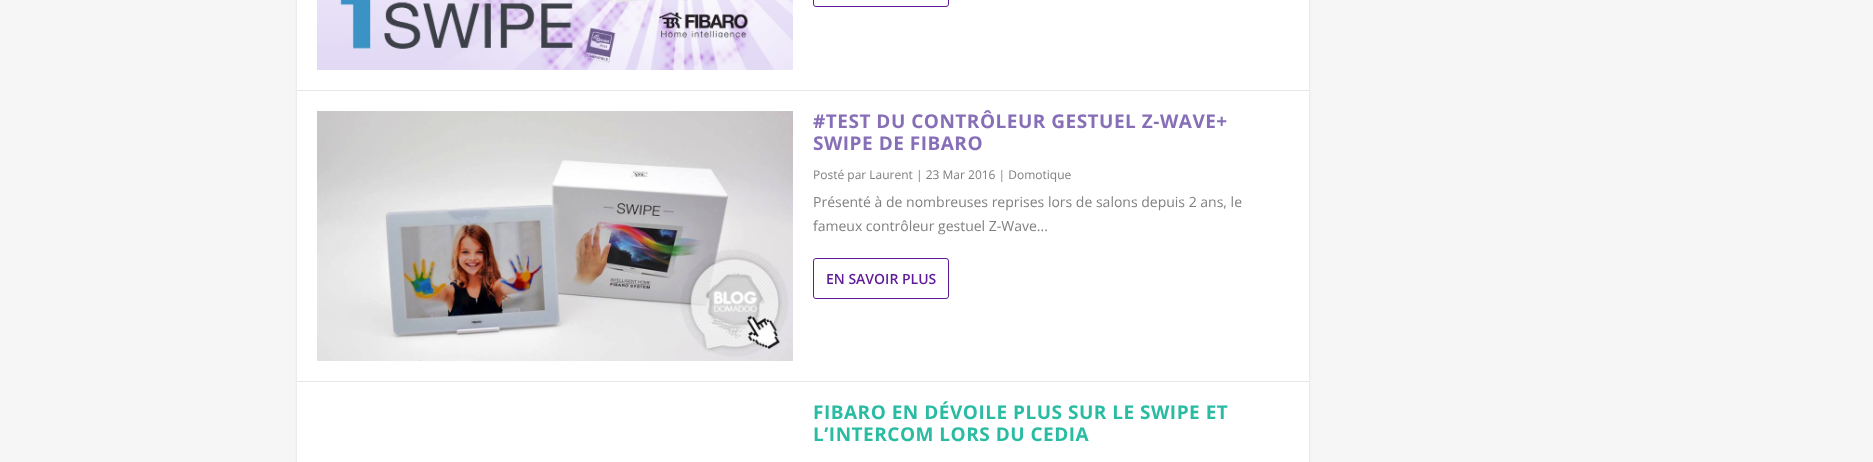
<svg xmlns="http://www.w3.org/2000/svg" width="1873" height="462">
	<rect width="100%" height="100%" fill="#F6F6F6" />
	<rect x="297" y="-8" width="1012" height="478" rx="3" fill="#000000" fill-opacity="0.1" filter="blur(1.5px)" />
	<rect x="297" y="0" width="1012" height="462" fill="#FFFFFF" />
	<rect x="297" y="90" width="1012" height="1" fill="#E6E6E6" />
	<image x="317" y="0" width="476" height="70" href="assets/img1.png" />
	<rect x="813.5" y="-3.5" width="135" height="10" rx="2.5" fill="none" stroke="#5E1A99" />
	<rect x="297" y="381" width="1012" height="1" fill="#E6E6E6" />
	<image x="317" y="111" width="476" height="250" href="assets/img2.png" />
	<g font-family="Open Sans" font-size="19" font-weight="700" letter-spacing="0.5" fill="#876FB8">
		<text x="813" y="128">#TEST DU CONTRÔLEUR GESTUEL Z-WAVE+</text>
		<text x="813" y="150">SWIPE DE FIBARO</text>
	</g>
	<text x="813" y="179" font-family="Open Sans" font-size="12" fill="#808080">Posté par Laurent | 23 Mar 2016 | Domotique</text>
	<g font-family="Open Sans" font-size="14" fill="#808080">
		<text x="813" y="207">Présenté à de nombreuses reprises lors de salons depuis 2 ans, le</text>
		<text x="813" y="231">fameux contrôleur gestuel Z-Wave...</text>
	</g>
	<rect x="813.5" y="258.5" width="135" height="40" rx="2.5" fill="none" stroke="#5E1A99" />
	<text x="826" y="284" font-family="Open Sans" font-size="14" font-weight="600" fill="#5E1A99">EN SAVOIR PLUS</text>
	<g font-family="Open Sans" font-size="19" font-weight="700" letter-spacing="0.5" fill="#2ABCA3">
		<text x="813" y="419">FIBARO EN DÉVOILE PLUS SUR LE SWIPE ET</text>
		<text x="813" y="441">L’INTERCOM LORS DU CEDIA</text>
	</g>
</svg>
